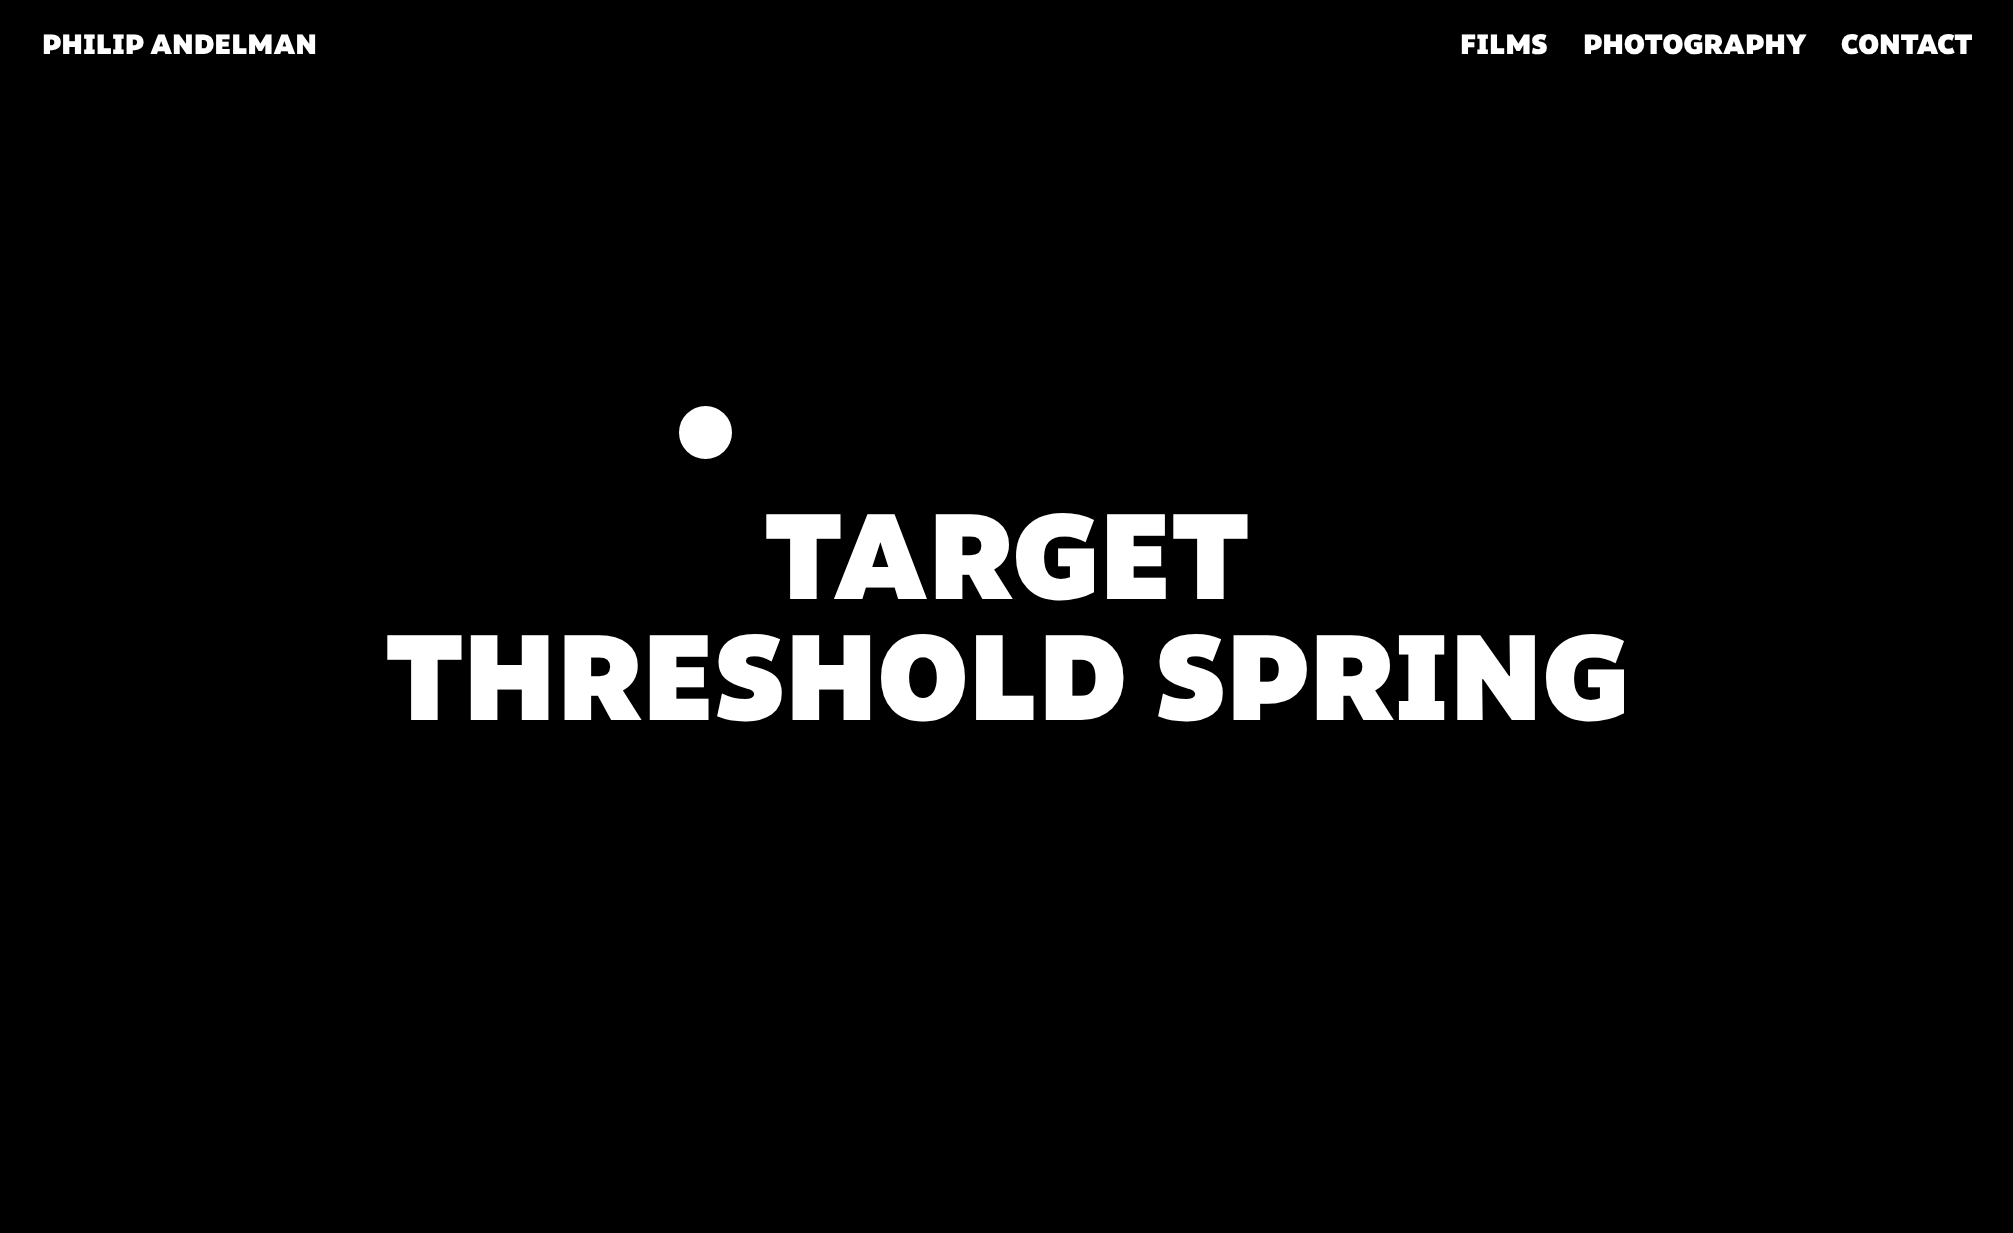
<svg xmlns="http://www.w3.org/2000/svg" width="2013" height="1233">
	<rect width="100%" height="100%" fill="#000000" />
	<g font-family="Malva" font-size="28" font-weight="900" fill="#FFFFFF">
		<text x="42" y="54">PHILIP ANDELMAN</text>
		<text x="1460" y="54">FILMS</text>
		<text x="1583" y="54">PHOTOGRAPHY</text>
		<text x="1841" y="54">CONTACT</text>
	</g>
	<g font-family="Malva" font-size="120.9" font-weight="900" fill="#FFFFFF">
		<text x="765" y="599">TARGET</text>
		<text x="386" y="720">THRESHOLD SPRING</text>
	</g>
	<circle cx="705.5" cy="432.5" r="26.5" fill="#FFFFFF" />
</svg>
